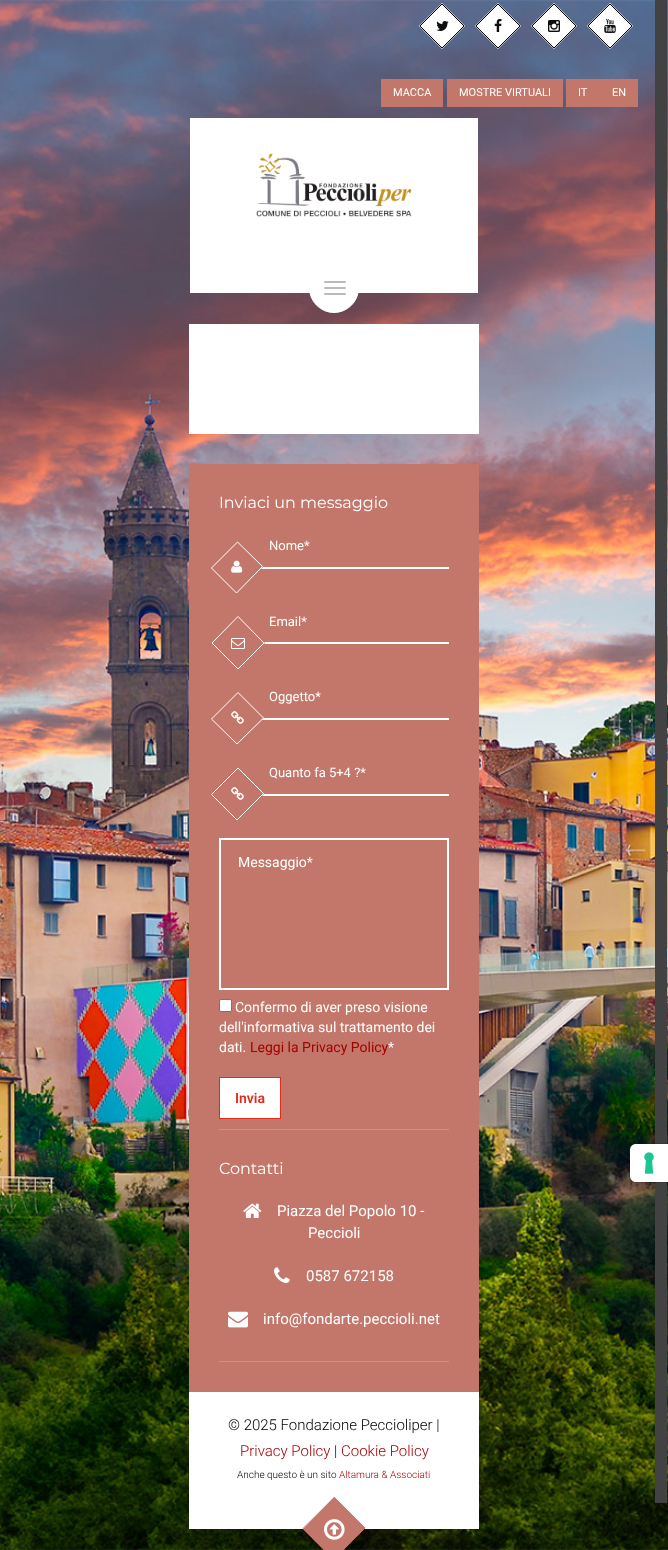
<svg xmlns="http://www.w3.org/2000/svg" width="668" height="1550">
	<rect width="100%" height="100%" fill="#FFFFFF" />
	<image x="0" y="0" width="668" height="1550" href="assets/img1.png" />
	<path d="M442 3L465 26L442 49L419 26Z" fill="#FFFFFF" />
	<path d="M442 4L464 26L442 48L420 26Z" fill="none" stroke="#000000" />
	<image x="436" y="21" width="13" height="10" href="assets/img2.png" />
	<path d="M498 3L521 26L498 49L475 26Z" fill="#FFFFFF" />
	<path d="M498 4L520 26L498 48L476 26Z" fill="none" stroke="#000000" />
	<image x="494" y="19" width="8" height="13" href="assets/img3.png" />
	<path d="M554 3L577 26L554 49L531 26Z" fill="#FFFFFF" />
	<path d="M554 4L576 26L554 48L532 26Z" fill="none" stroke="#000000" />
	<image x="548" y="20" width="12" height="12" href="assets/img4.png" />
	<path d="M610 3L633 26L610 49L587 26Z" fill="#FFFFFF" />
	<path d="M610 4L632 26L610 48L588 26Z" fill="none" stroke="#000000" />
	<image x="604" y="19" width="12" height="14" href="assets/img5.png" />
	<rect x="381" y="79" width="62" height="28" fill="#C2776A" />
	<text x="393" y="96" font-family="Roboto" font-size="11" fill="#FFFFFF">MACCA</text>
	<rect x="447" y="79" width="116" height="28" fill="#C2776A" />
	<text x="459" y="96" font-family="Roboto" font-size="11" fill="#FFFFFF">MOSTRE VIRTUALI</text>
	<rect x="566" y="79" width="72" height="28" fill="#C2776A" />
	<g font-family="Roboto" font-size="11" fill="#FFFFFF">
		<text x="578" y="96">IT</text>
		<text x="612" y="96">EN</text>
	</g>
	<rect x="190" y="118" width="288" height="175" fill="#FFFFFF" />
	<image x="256" y="153" width="156" height="64" href="assets/img6.png" />
	<circle cx="334" cy="288" r="24.5" fill="#FFFFFF" stroke="#FFFFFF" />
	<rect x="324" y="281" width="22" height="2" rx="1" fill="#BBBBBB" />
	<rect x="324" y="287" width="22" height="2" rx="1" fill="#BBBBBB" />
	<rect x="324" y="293" width="22" height="2" rx="1" fill="#BBBBBB" />
	<rect x="189" y="324" width="290" height="110" fill="#FFFFFF" />
	<rect x="189" y="464" width="290" height="928" fill="#C2776A" />
	<text x="219" y="508" font-family="Montserrat" font-size="16" fill="#FFFFFF">Inviaci un messaggio</text>
	<rect x="261" y="567" width="188" height="2" fill="#FFFFFF" />
	<path d="M238 541L263 567L236 593L211 568Z" fill="#C2776A" />
	<path d="M237.5 542L262.5 566.5L236.5 593L211.5 568Z" fill="none" stroke="#FFFFFF" />
	<image x="231" y="560" width="12" height="13" href="assets/img7.png" />
	<text x="269" y="550" font-family="Roboto" font-size="13" fill="#FFFFFF">Nome*</text>
	<rect x="264" y="642" width="185" height="2" fill="#FFFFFF" />
	<path d="M238 616L265 643L238 670L211 643Z" fill="#C2776A" />
	<path d="M238 616.5L264 643L238 669L212 643Z" fill="none" stroke="#FFFFFF" />
	<image x="231" y="638" width="14" height="11" href="assets/img8.png" />
	<text x="269" y="626" font-family="Roboto" font-size="13" fill="#FFFFFF">Email*</text>
	<rect x="262" y="718" width="187" height="2" fill="#FFFFFF" />
	<path d="M238 692L264 718L237 745L211 719Z" fill="#C2776A" />
	<path d="M238 692.5L263.5 718L237 744L211.5 719Z" fill="none" stroke="#FFFFFF" />
	<image x="231" y="711" width="13" height="13" href="assets/img9.png" />
	<text x="269" y="701" font-family="Roboto" font-size="13" fill="#FFFFFF">Oggetto*</text>
	<rect x="262" y="794" width="187" height="2" fill="#FFFFFF" />
	<path d="M238 767L264 794L237 821L211 794Z" fill="#C2776A" />
	<path d="M238 768L263.5 793.5L237 820L211.5 794.5Z" fill="none" stroke="#FFFFFF" />
	<image x="231" y="787" width="13" height="13" href="assets/img9.png" />
	<text x="269" y="777" font-family="Roboto" font-size="13" fill="#FFFFFF">Quanto fa 5+4 ?*</text>
	<rect x="220" y="839" width="228" height="150" fill="none" stroke="#FFFFFF" stroke-width="2" />
	<text x="238" y="867" font-family="Roboto" font-size="14" fill="#FFFFFF">Messaggio*</text>
	<rect x="219.5" y="999.5" width="12" height="12" rx="1.5" fill="#FFFFFF" stroke="#767676" />
	<g font-family="Roboto" font-size="14" fill="#FFFFFF">
		<text x="235" y="1012">Confermo di aver preso visione</text>
		<text x="219" y="1032">dell'informativa sul trattamento dei</text>
		<text x="219" y="1052">dati.</text>
	</g>
	<text x="250" y="1052" font-family="Roboto" font-size="14" fill="#A30001">Leggi la Privacy Policy</text>
	<text x="388" y="1052" font-family="Roboto" font-size="14" fill="#FFFFFF">*</text>
	<rect x="219.5" y="1077.5" width="61" height="41" fill="#FFFFFF" stroke="#E52A1C" />
	<text x="235" y="1103" font-family="Roboto" font-size="14" font-weight="600" fill="#E52A1C">Invia</text>
	<rect x="219" y="1129" width="230" height="1" fill="#CE9288" />
	<rect x="219" y="1361" width="230" height="1" fill="#CE9288" />
	<text x="219" y="1174" font-family="Montserrat" font-size="16" fill="#FFFFFF">Contatti</text>
	<image x="243" y="1203" width="19" height="15" href="assets/img10.png" />
	<g font-family="Roboto" font-size="15" fill="#FFFFFF">
		<text x="277" y="1216">Piazza del Popolo 10 -</text>
		<text x="308" y="1238">Peccioli</text>
	</g>
	<image x="274" y="1267" width="16" height="16" href="assets/img11.png" />
	<text x="306" y="1281" font-family="Roboto" font-size="15" fill="#FFFFFF">0587 672158</text>
	<image x="228" y="1311" width="20" height="17" href="assets/img12.png" />
	<text x="263" y="1324" font-family="Roboto" font-size="15" fill="#FFFFFF">info@fondarte.peccioli.net</text>
	<rect x="189" y="1392" width="290" height="137" fill="#FFFFFF" />
	<text x="228" y="1430" font-family="Roboto" font-size="15" font-weight="300" fill="#000000">© 2025 Fondazione Peccioliper |</text>
	<text x="240" y="1456" font-family="Roboto" font-size="15" font-weight="300" fill="#A30001">Privacy Policy</text>
	<text x="334" y="1456" font-family="Roboto" font-size="15" font-weight="300" fill="#000000">|</text>
	<text x="341" y="1456" font-family="Roboto" font-size="15" font-weight="300" fill="#A30001">Cookie Policy</text>
	<text x="237" y="1478" font-family="Roboto" font-size="10" font-weight="300" fill="#000000">Anche questo è un sito</text>
	<text x="339" y="1478" font-family="Roboto" font-size="10" font-weight="300" fill="#A30001">Altamura &amp; Associati</text>
	<path d="M334 1497L365 1528L334 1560L303 1529Z" fill="#C2776A" />
	<path d="M334.5 1497.5L365 1528L333.5 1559L303 1528.5Z" fill="none" stroke="#C2776A" />
	<image x="324" y="1519" width="21" height="21" href="assets/img13.png" />
	<rect x="655" y="0" width="12" height="1503" fill="#424242" />
	<path d="M636 1143.5H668.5V1182.5H636C632.5 1182.5 629.5 1179.5 629.5 1176V1150C629.5 1146.5 632.5 1143.5 636 1143.5Z" fill="none" stroke="#000000" stroke-opacity="0.15" />
	<path d="M636 1144H668V1182H636C632.5 1182 630 1179.5 630 1176V1150C630 1146.5 632.5 1144 636 1144Z" fill="#FFFFFF" />
	<image x="644" y="1152" width="10" height="22" href="assets/img14.png" />
</svg>
